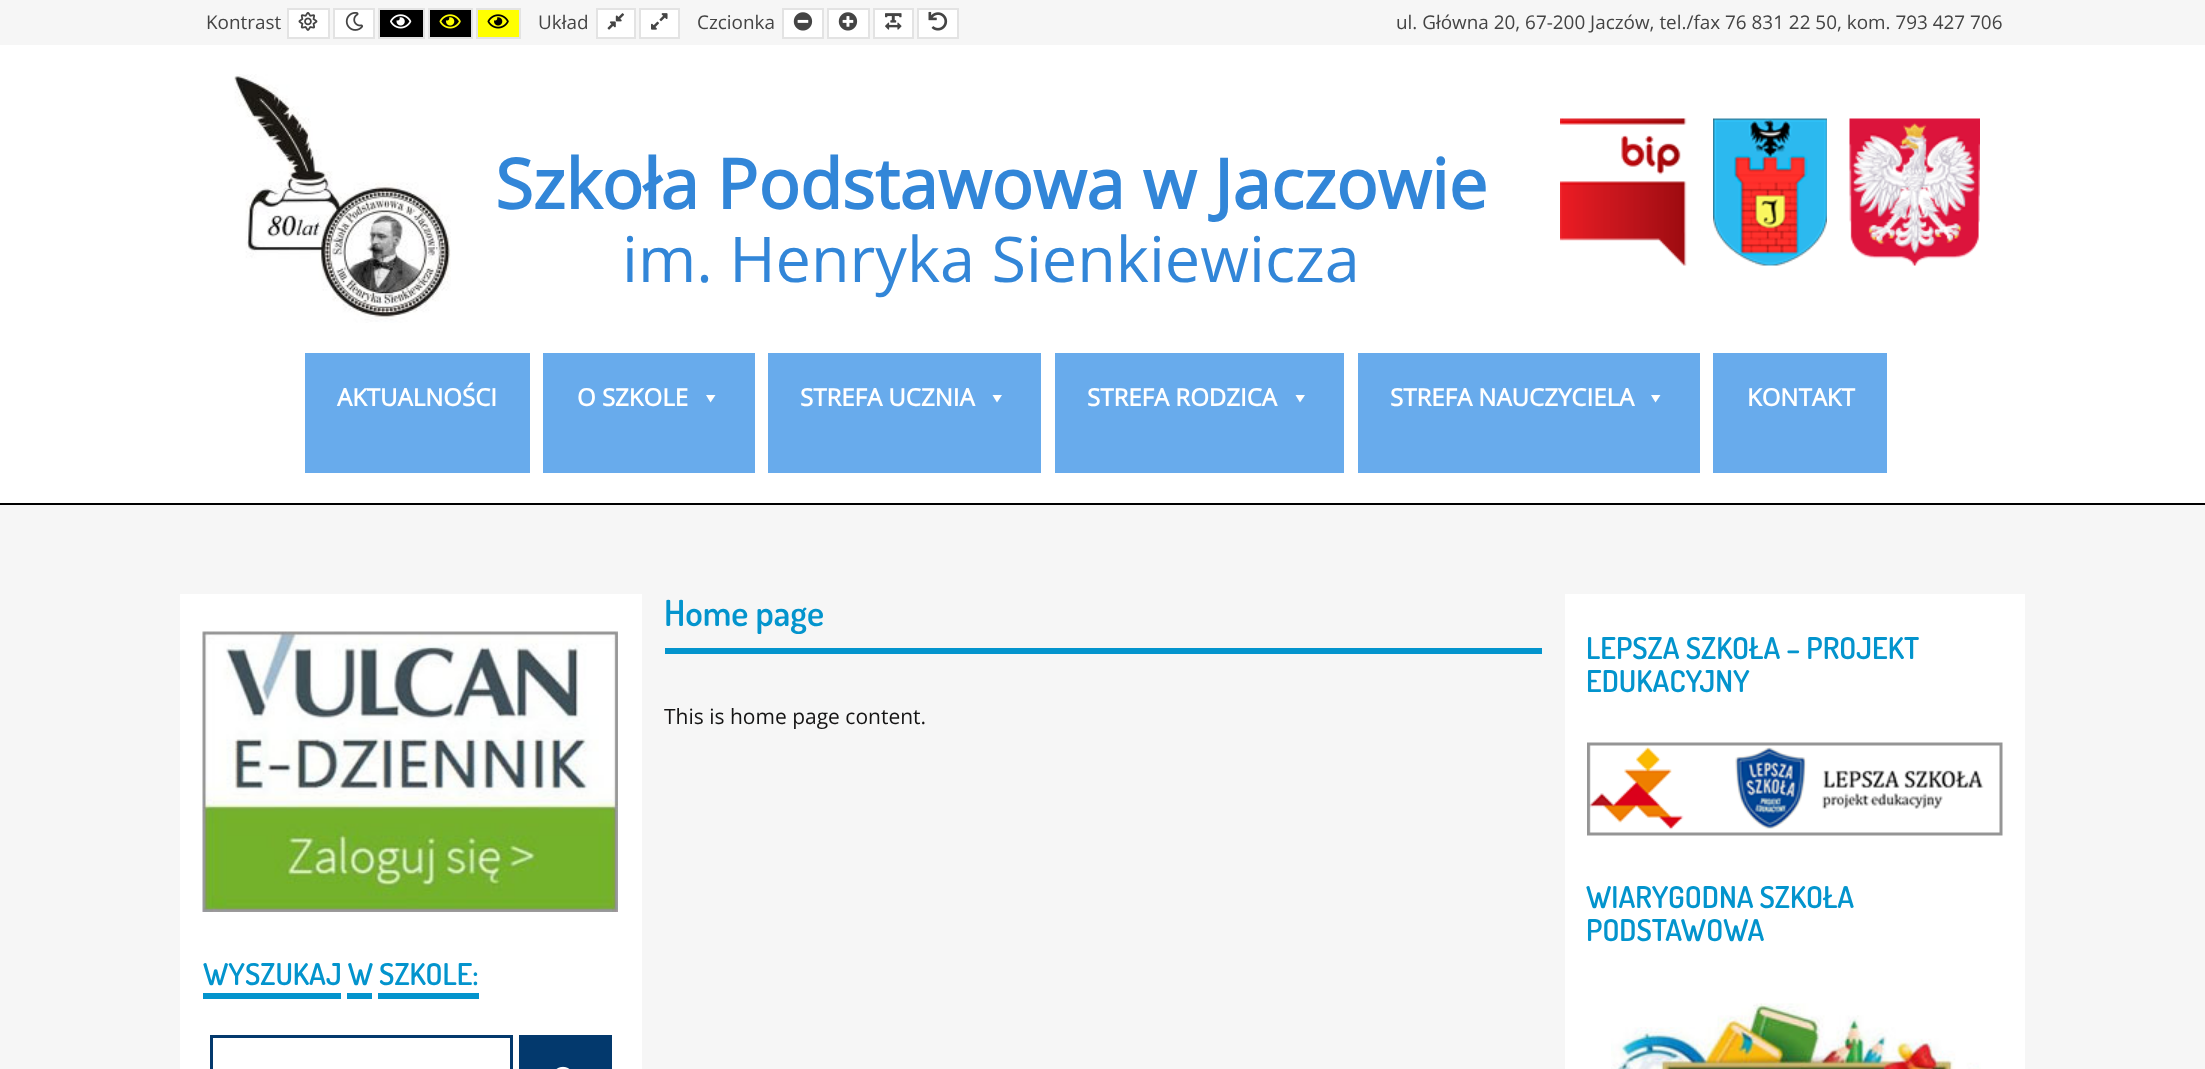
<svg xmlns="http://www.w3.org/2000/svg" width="2205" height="1069">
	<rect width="100%" height="100%" fill="#F6F6F6" />
	<text x="206" y="29" font-family="Open Sans" font-size="18.9" fill="#444444">Kontrast</text>
	<rect x="288" y="9" width="41" height="29" fill="#FFFFFF" stroke="#E3E3E3" stroke-width="2" />
	<image x="298" y="12" width="20" height="19" href="assets/img1.png" />
	<rect x="334" y="9" width="40" height="29" fill="#FFFFFF" stroke="#E3E3E3" stroke-width="2" />
	<image x="345" y="12" width="19" height="19" href="assets/img2.png" />
	<rect x="379" y="9" width="45" height="29" fill="#000000" stroke="#E3E3E3" stroke-width="2" />
	<image x="390" y="14" width="22" height="15" href="assets/img3.png" />
	<rect x="429" y="9" width="43" height="29" fill="#000000" stroke="#E3E3E3" stroke-width="2" />
	<image x="439" y="14" width="22" height="15" href="assets/img4.png" />
	<rect x="477" y="9" width="43" height="29" fill="#FFFF00" stroke="#E3E3E3" stroke-width="2" />
	<image x="487" y="14" width="22" height="15" href="assets/img5.png" />
	<text x="538" y="29" font-family="Open Sans" font-size="18.9" fill="#444444">Układ</text>
	<rect x="597" y="9" width="38" height="29" fill="#FFFFFF" stroke="#E3E3E3" stroke-width="2" />
	<image x="607" y="13" width="18" height="17" href="assets/img6.png" />
	<rect x="640" y="9" width="39" height="29" fill="#FFFFFF" stroke="#E3E3E3" stroke-width="2" />
	<image x="651" y="13" width="17" height="17" href="assets/img7.png" />
	<text x="697" y="29" font-family="Open Sans" font-size="18.9" fill="#444444">Czcionka</text>
	<rect x="783" y="9" width="40" height="29" fill="#FFFFFF" stroke="#E3E3E3" stroke-width="2" />
	<image x="793" y="12" width="20" height="19" href="assets/img8.png" />
	<rect x="828" y="9" width="41" height="29" fill="#FFFFFF" stroke="#E3E3E3" stroke-width="2" />
	<image x="838" y="12" width="20" height="19" href="assets/img9.png" />
	<rect x="874" y="9" width="39" height="29" fill="#FFFFFF" stroke="#E3E3E3" stroke-width="2" />
	<image x="885" y="13" width="17" height="17" href="assets/img10.png" />
	<rect x="918" y="9" width="40" height="29" fill="#FFFFFF" stroke="#E3E3E3" stroke-width="2" />
	<image x="928" y="11" width="20" height="20" href="assets/img11.png" />
	<text x="1396" y="29" font-family="Open Sans" font-size="18.9" fill="#444444">ul. Główna 20, 67-200 Jaczów, tel./fax 76 831 22 50, kom. 793 427 706</text>
	<rect x="0" y="45" width="2205" height="458" fill="#FFFFFF" />
	<rect x="0" y="503" width="2205" height="2" fill="#000000" />
	<image x="234" y="74" width="217" height="249" href="assets/img12.png" />
	<text x="495" y="209" font-family="Open Sans" font-size="69" font-weight="700" fill="#3286D8">Szkoła Podstawowa w Jaczowie</text>
	<text x="622" y="282" font-family="Open Sans" font-size="63" fill="#3286D8">im. Henryka Sienkiewicza</text>
	<image x="1560" y="118" width="127" height="148" href="assets/img13.png" />
	<image x="1713" y="118" width="114" height="148" href="assets/img14.png" />
	<image x="1849" y="118" width="131" height="148" href="assets/img15.png" />
	<rect x="305" y="353" width="225" height="120" fill="#68ABEC" />
	<text x="337" y="406" font-family="Open Sans" font-size="24" font-weight="700" fill="#FFFFFF">AKTUALNOŚCI</text>
	<rect x="543" y="353" width="212" height="120" fill="#68ABEC" />
	<text x="577" y="406" font-family="Open Sans" font-size="24" font-weight="700" fill="#FFFFFF">O SZKOLE</text>
	<path d="M715.5 395L710.5 402.5L706 395Z" fill="#FFFFFF" />
	<rect x="768" y="353" width="273" height="120" fill="#68ABEC" />
	<text x="800" y="406" font-family="Open Sans" font-size="24" font-weight="700" fill="#FFFFFF">STREFA UCZNIA</text>
	<path d="M1002 395L997 402.5L992.5 395Z" fill="#FFFFFF" />
	<rect x="1055" y="353" width="289" height="120" fill="#68ABEC" />
	<text x="1087" y="406" font-family="Open Sans" font-size="24" font-weight="700" fill="#FFFFFF">STREFA RODZICA</text>
	<path d="M1305 395L1300 402.5L1295.5 395Z" fill="#FFFFFF" />
	<rect x="1358" y="353" width="342" height="120" fill="#68ABEC" />
	<text x="1390" y="406" font-family="Open Sans" font-size="24" font-weight="700" fill="#FFFFFF">STREFA NAUCZYCIELA</text>
	<path d="M1660.5 395L1655.5 402.5L1651 395Z" fill="#FFFFFF" />
	<rect x="1713" y="353" width="174" height="120" fill="#68ABEC" />
	<text x="1747" y="406" font-family="Open Sans" font-size="24" font-weight="700" fill="#FFFFFF">KONTAKT</text>
	<rect x="665" y="648" width="877" height="6" fill="#0394CD" />
	<text x="664" y="626" font-family="Dosis" font-size="36" font-weight="600" fill="#0394CD">Home page</text>
	<text x="664" y="724" font-family="Open Sans" font-size="21" fill="#151414">This is home page content.</text>
	<rect x="1565" y="594" width="460" height="475" fill="#FFFFFF" />
	<g font-family="Dosis" font-size="30" font-weight="600" fill="#0394CD">
		<text x="1586" y="659">LEPSZA SZKOŁA – PROJEKT</text>
		<text x="1586" y="692">EDUKACYJNY</text>
	</g>
	<image x="1587" y="742" width="416" height="94" href="assets/img16.png" />
	<g font-family="Dosis" font-size="30" font-weight="600" fill="#0394CD">
		<text x="1586" y="908">WIARYGODNA SZKOŁA</text>
		<text x="1586" y="941">PODSTAWOWA</text>
	</g>
	<image x="1611" y="1003" width="370" height="66" href="assets/img17.png" />
	<rect x="180" y="594" width="462" height="475" fill="#FFFFFF" />
	<image x="202" y="631" width="416" height="281" href="assets/img18.png" />
	<text x="203" y="985" font-family="Dosis" font-size="30" font-weight="600" fill="#0394CD">WYSZUKAJ W SZKOLE:</text>
	<rect x="203" y="993" width="138" height="6" fill="#0394CD" />
	<rect x="347" y="993" width="25" height="6" fill="#0394CD" />
	<rect x="378" y="993" width="101" height="6" fill="#0394CD" />
	<rect x="211.5" y="1036.5" width="300" height="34" fill="none" stroke="#03396D" stroke-width="3" />
	<rect x="519" y="1035" width="93" height="34" fill="#03396D" />
	<image x="556" y="1066" width="14" height="3" href="assets/img19.png" />
</svg>
